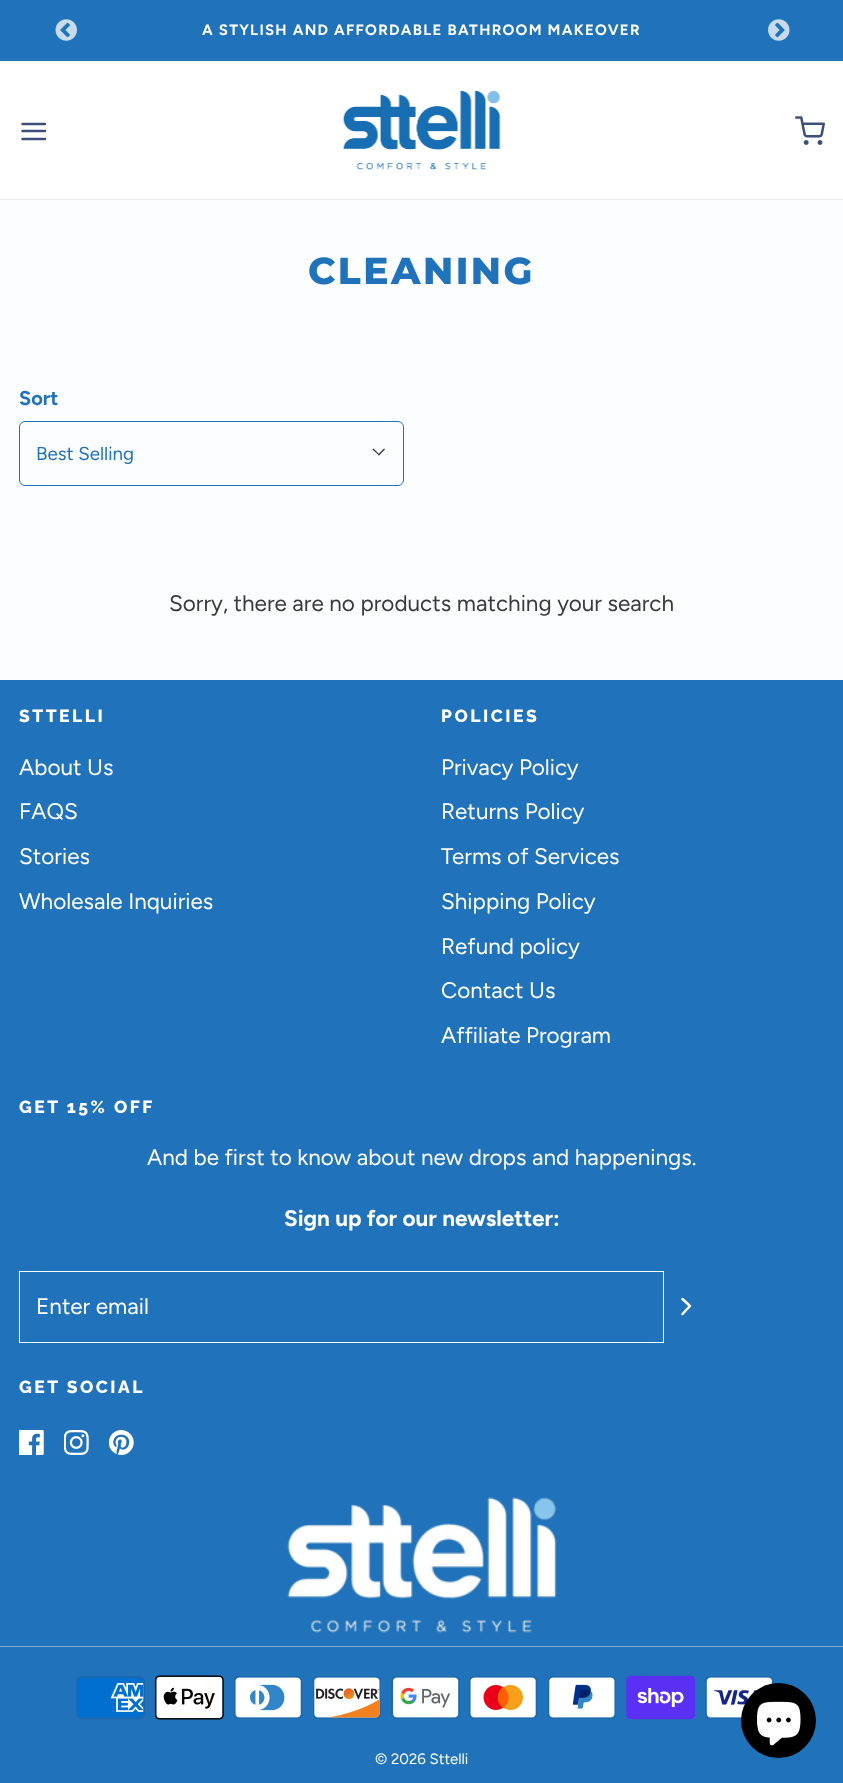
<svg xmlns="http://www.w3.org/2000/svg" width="843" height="1783">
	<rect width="100%" height="100%" fill="#FFFFFF" />
	<rect x="0" y="0" width="843" height="61" fill="#2072BA" />
	<image x="55" y="19" width="22" height="22" href="assets/img1.png" />
	<text x="202" y="35" font-family="Figtree" font-size="15" font-weight="700" letter-spacing="1.25" fill="#FFFFFF">A STYLISH AND AFFORDABLE BATHROOM MAKEOVER</text>
	<image x="768" y="19" width="22" height="22" href="assets/img2.png" />
	<rect x="0" y="199" width="843" height="1" fill="#ECEDF2" />
	<path d="M22.5 131H45M22.5 124H45M22.5 139H45" fill="none" stroke="#3D4F78" stroke-width="2.5" stroke-linecap="round" stroke-linejoin="round" />
	<image x="343" y="90" width="158" height="80" href="assets/img3.png" />
	<image x="795" y="116" width="30" height="29" href="assets/img4.png" />
	<rect x="0" y="200" width="843" height="480" fill="#FBFDFE" />
	<text x="308" y="284" font-family="Montserrat" font-size="37.5" font-weight="800" letter-spacing="2.5" fill="#2072BA">CLEANING</text>
	<text x="19" y="405" font-family="Figtree" font-size="20" font-weight="700" fill="#2072BA">Sort</text>
	<rect x="19.5" y="421.5" width="384" height="64" rx="5.5" fill="none" stroke="#2072BA" />
	<text x="36" y="460" font-family="Figtree" font-size="18.75" fill="#2072BA">Best Selling</text>
	<path d="M384 448.5L385 449.5L379 455.5L378 454.5Z" fill="#3A3A3A" />
	<path d="M373.5 448.5L379.5 454.5L379 455.5L372.5 449.5Z" fill="#3A3A3A" />
	<text x="169" y="611" font-family="Figtree" font-size="22.5" fill="#3A3A3A">Sorry, there are no products matching your search</text>
	<rect x="0" y="680" width="843" height="1103" fill="#2072BA" />
	<text x="19" y="722" font-family="Raleway" font-size="17.5" font-weight="800" letter-spacing="2.5" fill="#FFFFFF">STTELLI</text>
	<g font-family="Figtree" font-size="22.5" fill="#FFFFFF">
		<text x="19" y="775">About Us</text>
		<text x="19" y="819">FAQS</text>
		<text x="19" y="864">Stories</text>
		<text x="19" y="909">Wholesale Inquiries</text>
	</g>
	<text x="441" y="722" font-family="Raleway" font-size="17.5" font-weight="800" letter-spacing="2.5" fill="#FFFFFF">POLICIES</text>
	<g font-family="Figtree" font-size="22.5" fill="#FFFFFF">
		<text x="441" y="775">Privacy Policy</text>
		<text x="441" y="819">Returns Policy</text>
		<text x="441" y="864">Terms of Services</text>
		<text x="441" y="909">Shipping Policy</text>
		<text x="441" y="954">Refund policy</text>
		<text x="441" y="998">Contact Us</text>
		<text x="441" y="1043">Affiliate Program</text>
	</g>
	<text x="19" y="1113" font-family="Raleway" font-size="17.5" font-weight="800" letter-spacing="2.5" fill="#FFFFFF">GET 15% OFF</text>
	<text x="147" y="1165" font-family="Figtree" font-size="22.5" fill="#FFFFFF">And be first to know about new drops and happenings.</text>
	<text x="284" y="1226" font-family="Figtree" font-size="22.5" font-weight="700" fill="#FFFFFF">Sign up for our newsletter:</text>
	<rect x="19.5" y="1271.5" width="644" height="71" fill="none" stroke="#FFFFFF" />
	<text x="36" y="1314" font-family="Figtree" font-size="22.5" fill="#FFFFFF">Enter email</text>
	<path d="M682.5 1314L690 1306L682.5 1299" fill="none" stroke="#FFFFFF" stroke-width="2.5" stroke-linecap="round" stroke-linejoin="round" />
	<text x="19" y="1393" font-family="Raleway" font-size="17.5" font-weight="800" letter-spacing="2.5" fill="#FFFFFF">GET SOCIAL</text>
	<image x="19" y="1430" width="25" height="25" href="assets/img5.png" />
	<image x="64" y="1430" width="25" height="25" href="assets/img6.png" />
	<image x="109" y="1430" width="25" height="25" href="assets/img7.png" />
	<image x="287" y="1497" width="270" height="136" href="assets/img8.png" />
	<rect x="0" y="1646" width="843" height="1" fill="#81ADCA" />
	<image x="76" y="1676" width="69" height="43" href="assets/img9.png" />
	<image x="155" y="1675" width="69" height="45" href="assets/img10.png" />
	<image x="234" y="1676" width="69" height="43" href="assets/img11.png" />
	<image x="313" y="1676" width="68" height="43" href="assets/img12.png" />
	<image x="391" y="1676" width="69" height="43" href="assets/img13.png" />
	<image x="469" y="1676" width="69" height="43" href="assets/img14.png" />
	<image x="548" y="1676" width="68" height="43" href="assets/img15.png" />
	<image x="626" y="1675" width="69" height="45" href="assets/img16.png" />
	<image x="705" y="1676" width="69" height="43" href="assets/img17.png" />
	<text x="375" y="1764" font-family="Figtree" font-size="15" fill="#FFFFFF">© 2026 Sttelli</text>
	<circle cx="778.5" cy="1720.5" r="37.5" fill="#000000" />
	<image x="757" y="1701" width="44" height="45" href="assets/img18.png" />
</svg>
